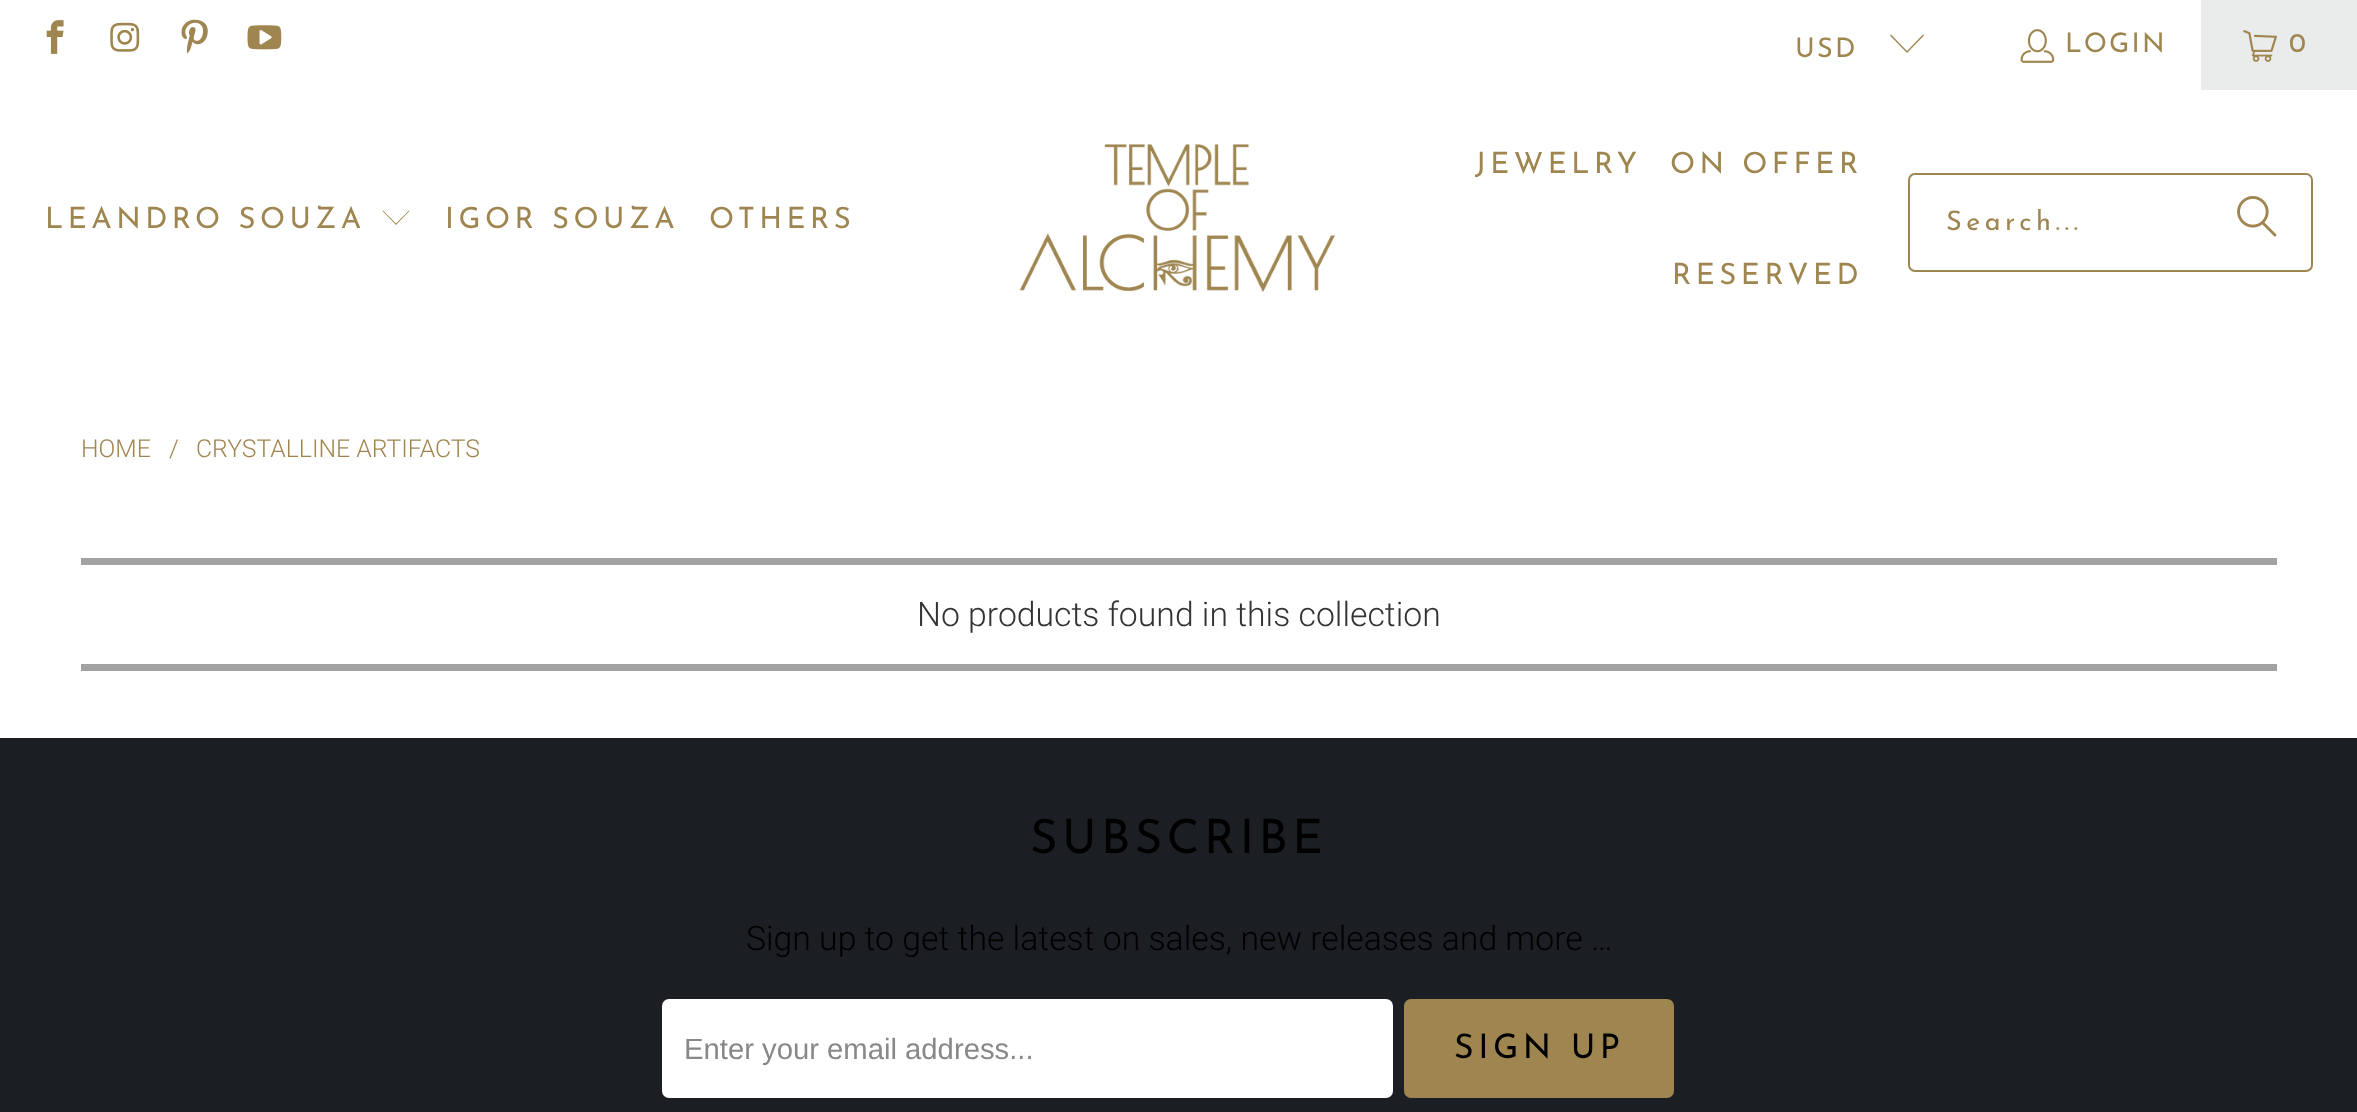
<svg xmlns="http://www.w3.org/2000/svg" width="2357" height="1112">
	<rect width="100%" height="100%" fill="#FFFFFF" />
	<image x="46" y="20" width="18" height="34" href="assets/img1.png" />
	<image x="110" y="22" width="30" height="30" href="assets/img2.png" />
	<image x="181" y="19" width="27" height="35" href="assets/img3.png" />
	<image x="247" y="25" width="35" height="25" href="assets/img4.png" />
	<text x="1795" y="57" font-family="Josefin Sans" font-size="27" letter-spacing="2.25" fill="#9F8650">USD</text>
	<path d="M1907 53L1890 35.5L1891 34.5L1907 51L1923 34.5L1924 35.5Z" fill="#9F8650" />
	<image x="2020" y="29" width="35" height="34" href="assets/img5.png" />
	<text x="2065" y="52" font-family="Josefin Sans" font-size="27" letter-spacing="2.25" fill="#9F8650">LOGIN</text>
	<rect x="2201" y="0" width="156" height="90" fill="#EAEBEB" />
	<image x="2243" y="30" width="34" height="32" href="assets/img6.png" />
	<text x="2289" y="52" font-family="Josefin Sans" font-size="27" letter-spacing="2.25" fill="#9F8650">0</text>
	<text x="45" y="228" font-family="Josefin Sans" font-size="29.25" letter-spacing="4.5" fill="#9F8650">LEANDRO SOUZA</text>
	<path d="M396 225L382.5 211L383 210.5L396 223.5L409 210.5L409.5 211Z" fill="#9F8650" />
	<g font-family="Josefin Sans" font-size="29.25" letter-spacing="4.5" fill="#9F8650">
		<text x="445" y="228">IGOR SOUZA</text>
		<text x="709" y="228">OTHERS</text>
	</g>
	<image x="1019" y="144" width="316" height="148" href="assets/img7.png" />
	<g font-family="Josefin Sans" font-size="29.25" letter-spacing="4.5" fill="#9F8650">
		<text x="1475" y="173">JEWELRY</text>
		<text x="1670" y="173">ON OFFER</text>
		<text x="1672" y="284">RESERVED</text>
	</g>
	<rect x="1909" y="174" width="403" height="97" rx="6" fill="none" stroke="#9F8650" stroke-width="2" />
	<text x="1946" y="230" font-family="Josefin Sans" font-size="27" letter-spacing="4.5" fill="#9F8650">Search...</text>
	<image x="2237" y="196" width="40" height="41" href="assets/img8.png" />
	<g font-family="Roboto" font-size="24.75" font-weight="300" fill="#9F8650">
		<text x="81" y="457">HOME</text>
		<text x="169" y="457">/</text>
		<text x="196" y="457">CRYSTALLINE ARTIFACTS</text>
	</g>
	<rect x="81" y="558" width="2196" height="7" fill="#A2A2A2" />
	<rect x="81" y="664" width="2196" height="7" fill="#A2A2A2" />
	<text x="917" y="626" font-family="Roboto" font-size="33.75" font-weight="300" fill="#333333">No products found in this collection</text>
	<rect x="0" y="738" width="2357" height="374" fill="#1B1F23" />
	<text x="1030" y="853" font-family="Josefin Sans" font-size="47.25" letter-spacing="4.5" fill="#000000">SUBSCRIBE</text>
	<text x="746" y="950" font-family="Roboto" font-size="33.75" font-weight="300" fill="#000000">Sign up to get the latest on sales, new releases and more …</text>
	<rect x="662" y="999" width="731" height="99" rx="7" fill="#FFFFFF" />
	<text x="684" y="1059" font-family="Liberation Sans" font-size="29.25" fill="#888888">Enter your email address...</text>
	<rect x="1405" y="1000" width="268" height="97" rx="6" fill="#9F8650" stroke="#9F8650" stroke-width="2" />
	<text x="1454" y="1058" font-family="Josefin Sans" font-size="33.75" letter-spacing="4.5" fill="#000000">SIGN UP</text>
</svg>
